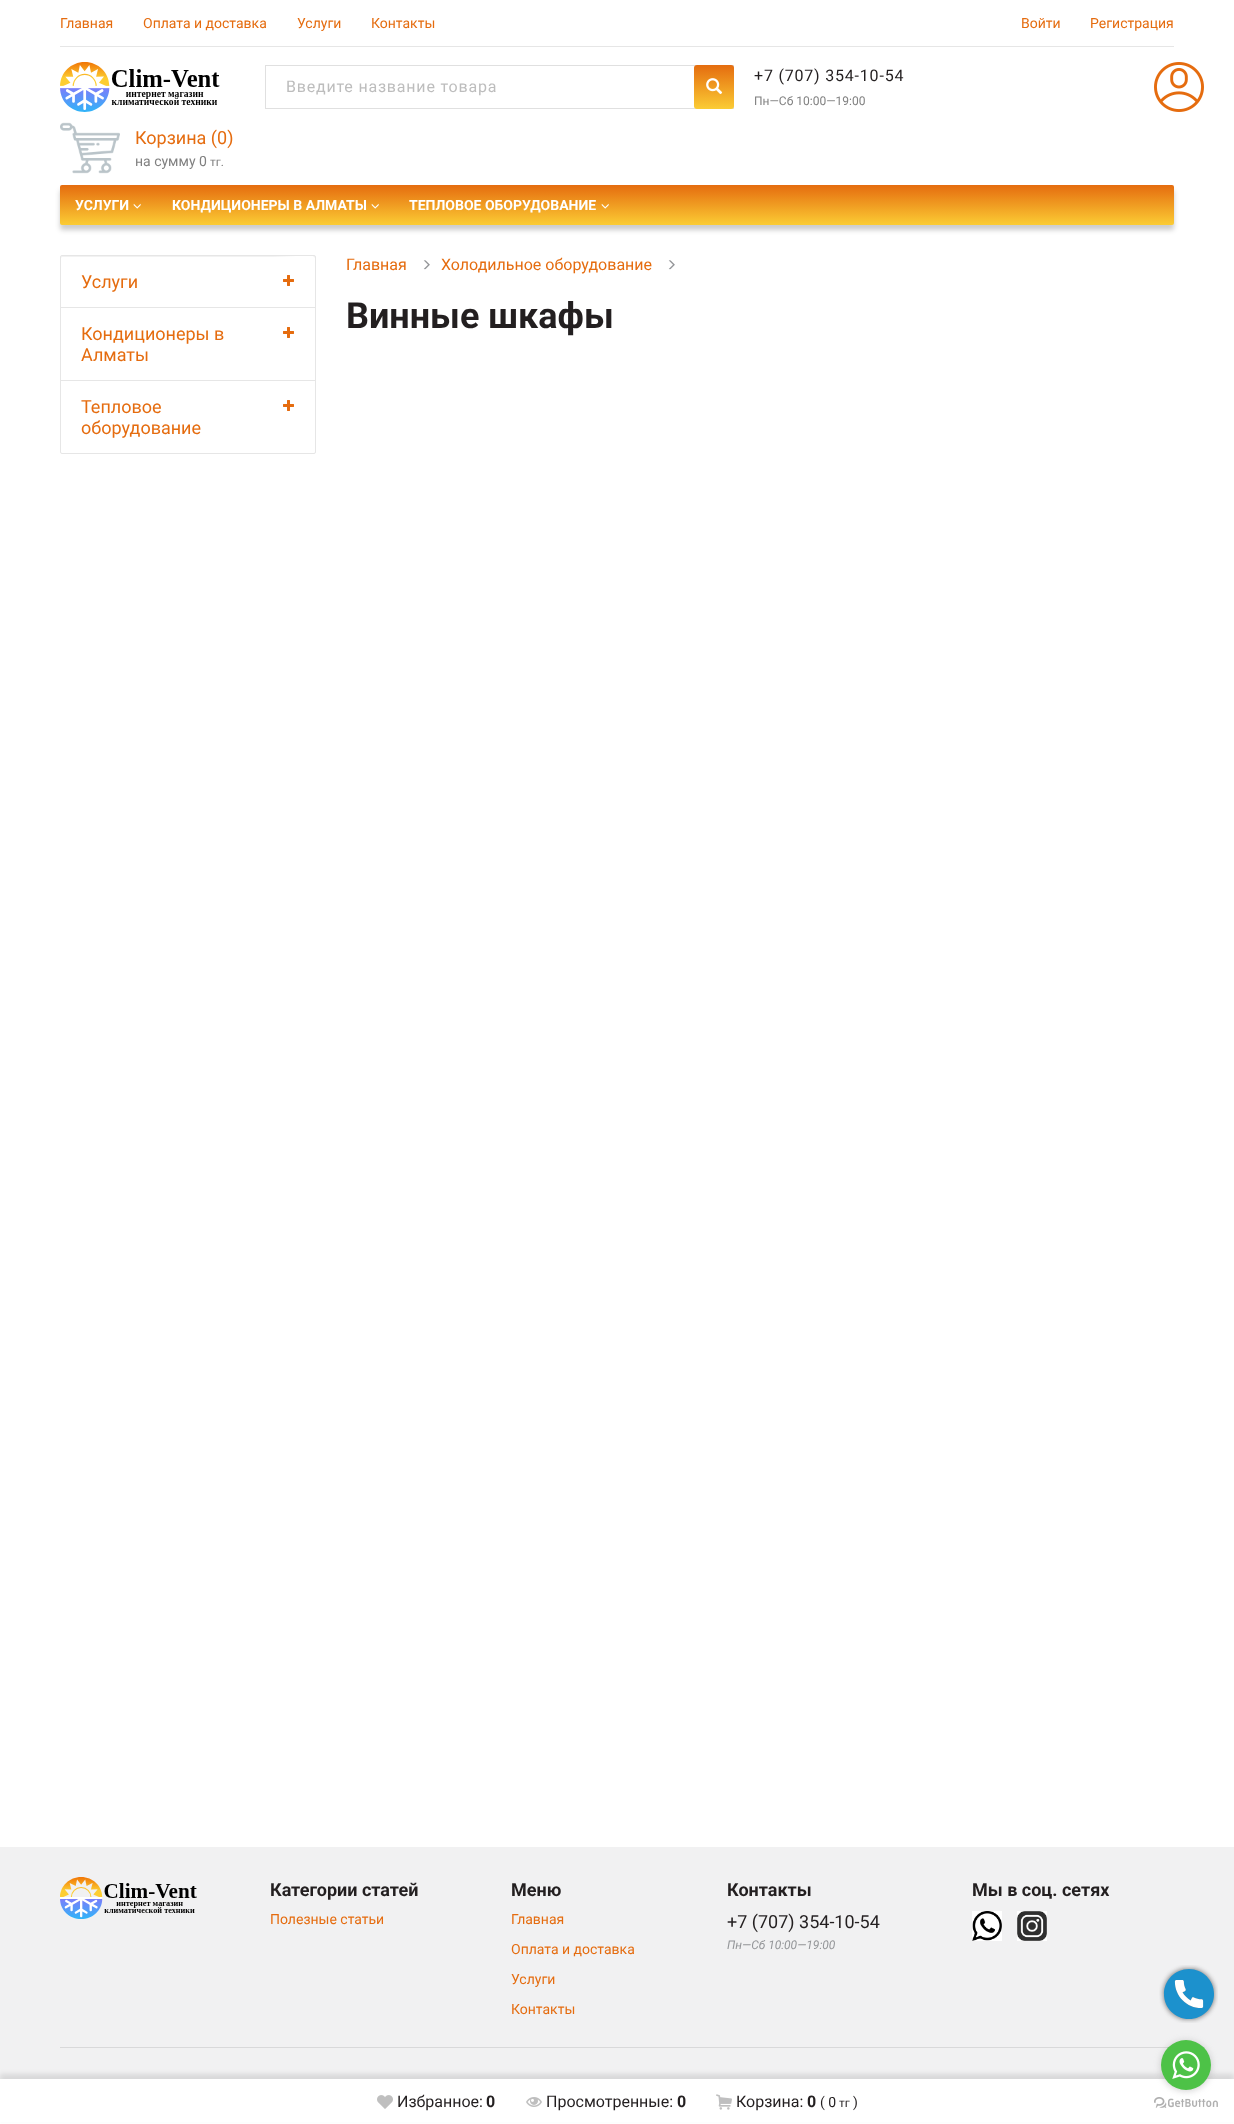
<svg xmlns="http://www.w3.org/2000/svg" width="1234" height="2124">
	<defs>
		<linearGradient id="g1" gradientUnits="userSpaceOnUse" x1="714" y1="65" x2="714" y2="109"><stop offset="0" stop-color="#E56C0F" /><stop offset="1" stop-color="#FBCC34" /></linearGradient>
		<linearGradient id="g2" gradientUnits="userSpaceOnUse" x1="617" y1="185" x2="617" y2="225"><stop offset="0" stop-color="#E56C0F" /><stop offset="1" stop-color="#FBCC34" /></linearGradient>
	</defs>
	<rect width="100%" height="100%" fill="#FFFFFF" />
	<rect x="60" y="46" width="1114" height="1" fill="#E6E6E6" />
	<g font-family="Roboto" font-size="14" fill="#E56C0F">
		<text x="60" y="28">Главная</text>
		<text x="143" y="28">Оплата и доставка</text>
		<text x="297" y="28">Услуги</text>
		<text x="371" y="28">Контакты</text>
		<text x="1021" y="28">Войти</text>
		<text x="1090" y="28">Регистрация</text>
	</g>
	<image x="60" y="62" width="160" height="50" href="assets/img1.png" />
	<rect x="265.5" y="65.5" width="468" height="43" fill="none" stroke="#E0E0E0" />
	<text x="286" y="92" font-family="Roboto" font-size="16" letter-spacing="0.8" fill="#BDBDBD">Введите название товара</text>
	<rect x="694" y="65" width="40" height="44" rx="3" fill="url(#g1)" />
	<image x="706" y="78" width="17" height="17" href="assets/img2.png" />
	<text x="754" y="81" font-family="Roboto" font-size="16" letter-spacing="0.8" fill="#231F20">+7 (707) 354-10-54</text>
	<text x="754" y="105" font-family="Roboto" font-size="12" fill="#808080">Пн—Сб 10:00—19:00</text>
	<image x="1154" y="62" width="50" height="50" href="assets/img3.png" />
	<image x="60" y="122" width="60" height="52" href="assets/img4.png" />
	<text x="135" y="144" font-family="Roboto" font-size="18" fill="#E56C0F">Корзина (0)</text>
	<text x="135" y="166" font-family="Roboto" font-size="14" fill="#808080">на сумму 0</text>
	<text x="210" y="166" font-family="Roboto" font-size="12" fill="#808080">тг.</text>
	<rect x="60" y="190" width="1114" height="40" rx="2" fill="#000000" fill-opacity="0.2" filter="blur(2.5px)" />
	<rect x="60" y="185" width="1114" height="40" rx="2" fill="url(#g2)" />
	<text x="75" y="210" font-family="Roboto" font-size="14" font-weight="700" fill="#FFFFFF">УСЛУГИ</text>
	<image x="133" y="203" width="8" height="6" href="assets/img5.png" />
	<text x="172" y="210" font-family="Roboto" font-size="14" font-weight="700" fill="#FFFFFF">КОНДИЦИОНЕРЫ В АЛМАТЫ</text>
	<image x="371" y="203" width="8" height="6" href="assets/img5.png" />
	<text x="409" y="210" font-family="Roboto" font-size="14" font-weight="700" fill="#FFFFFF">ТЕПЛОВОЕ ОБОРУДОВАНИЕ</text>
	<image x="601" y="203" width="8" height="6" href="assets/img5.png" />
	<path d="M62 257L61 258C61 257 61 256 62 256H297L272 257ZM313 256L315 258C315 256 315 256 313 256Z" fill="#F2F2F2" fill-rule="evenodd" />
	<rect x="60.5" y="255.5" width="255" height="198" rx="1.5" fill="none" stroke="#E6E6E6" />
	<text x="81" y="288" font-family="Roboto" font-size="18" fill="#E56C0F">Услуги</text>
	<image x="283" y="275" width="11" height="11" href="assets/img6.png" />
	<rect x="61" y="307" width="254" height="1" fill="#E6E6E6" />
	<g font-family="Roboto" font-size="18" fill="#E56C0F">
		<text x="81" y="340">Кондиционеры в</text>
		<text x="81" y="361">Алматы</text>
	</g>
	<image x="283" y="327" width="11" height="11" href="assets/img6.png" />
	<rect x="61" y="380" width="254" height="1" fill="#E6E6E6" />
	<g font-family="Roboto" font-size="18" fill="#E56C0F">
		<text x="81" y="413">Тепловое</text>
		<text x="81" y="434">оборудование</text>
	</g>
	<image x="283" y="400" width="11" height="11" href="assets/img6.png" />
	<text x="346" y="270" font-family="Roboto" font-size="16" fill="#E56C0F">Главная</text>
	<image x="423" y="260" width="7" height="10" href="assets/img7.png" />
	<text x="441" y="270" font-family="Roboto" font-size="16" fill="#E56C0F">Холодильное оборудование</text>
	<image x="668" y="260" width="7" height="10" href="assets/img7.png" />
	<text x="346" y="328" font-family="Roboto" font-size="36" font-weight="700" fill="#231F20">Винные шкафы</text>
	<rect x="0" y="1847" width="1234" height="232" fill="#F1F1F2" />
	<image x="60" y="1877" width="137" height="42" href="assets/img8.png" />
	<text x="270" y="1896" font-family="Roboto" font-size="18" font-weight="700" fill="#231F20">Категории статей</text>
	<text x="270" y="1924" font-family="Roboto" font-size="14" fill="#E56C0F">Полезные статьи</text>
	<text x="511" y="1896" font-family="Roboto" font-size="18" font-weight="700" fill="#231F20">Меню</text>
	<g font-family="Roboto" font-size="14" fill="#E56C0F">
		<text x="511" y="1924">Главная</text>
		<text x="511" y="1954">Оплата и доставка</text>
		<text x="511" y="1984">Услуги</text>
		<text x="511" y="2014">Контакты</text>
	</g>
	<text x="727" y="1896" font-family="Roboto" font-size="18" font-weight="700" fill="#231F20">Контакты</text>
	<text x="727" y="1928" font-family="Roboto" font-size="18" fill="#231F20">+7 (707) 354-10-54</text>
	<text x="727" y="1949" font-family="Roboto" font-size="12" font-style="italic" fill="#939598">Пн—Сб 10:00—19:00</text>
	<text x="972" y="1896" font-family="Roboto" font-size="18" font-weight="700" fill="#231F20">Мы в соц. сетях</text>
	<image x="972" y="1911" width="30" height="30" href="assets/img9.png" />
	<image x="1017" y="1911" width="30" height="30" href="assets/img10.png" />
	<rect x="60" y="2047" width="1114" height="1" fill="#D9D9DA" />
	<image x="1159" y="1965" width="59" height="58" href="assets/img11.png" />
	<rect x="0" y="2074" width="1234" height="45" fill="#000000" fill-opacity="0.1" filter="blur(2.5px)" />
	<rect x="0" y="2079" width="1234" height="43" fill="#FFFFFF" />
	<image x="377" y="2095" width="16" height="14" href="assets/img12.png" />
	<text x="397" y="2107" font-family="Roboto" font-size="16" fill="#231F20">Избранное:</text>
	<text x="486" y="2107" font-family="Roboto" font-size="16" font-weight="700" fill="#231F20">0</text>
	<image x="526" y="2097" width="16" height="10" href="assets/img13.png" />
	<text x="546" y="2107" font-family="Roboto" font-size="16" fill="#231F20">Просмотренные:</text>
	<text x="677" y="2107" font-family="Roboto" font-size="16" font-weight="700" fill="#231F20">0</text>
	<image x="716" y="2094" width="16" height="16" href="assets/img14.png" />
	<text x="736" y="2107" font-family="Roboto" font-size="16" fill="#231F20">Корзина:</text>
	<text x="807" y="2107" font-family="Roboto" font-size="16" font-weight="700" fill="#231F20">0</text>
	<text x="820" y="2107" font-family="Roboto" font-size="14" fill="#231F20">( 0</text>
	<text x="839" y="2107" font-family="Roboto" font-size="12" fill="#231F20">тг</text>
	<text x="853" y="2107" font-family="Roboto" font-size="14" fill="#231F20">)</text>
	<image x="1154" y="2097" width="64" height="11" href="assets/img16.png" />
	<rect x="1161" y="2041" width="50" height="50" rx="25" fill="#888888" fill-opacity="0.4" filter="blur(3.5px)" />
	<circle cx="1186" cy="2065" r="25" fill="#4DC247" />
	<image x="1172" y="2051" width="28" height="28" href="assets/img15.png" />
</svg>
